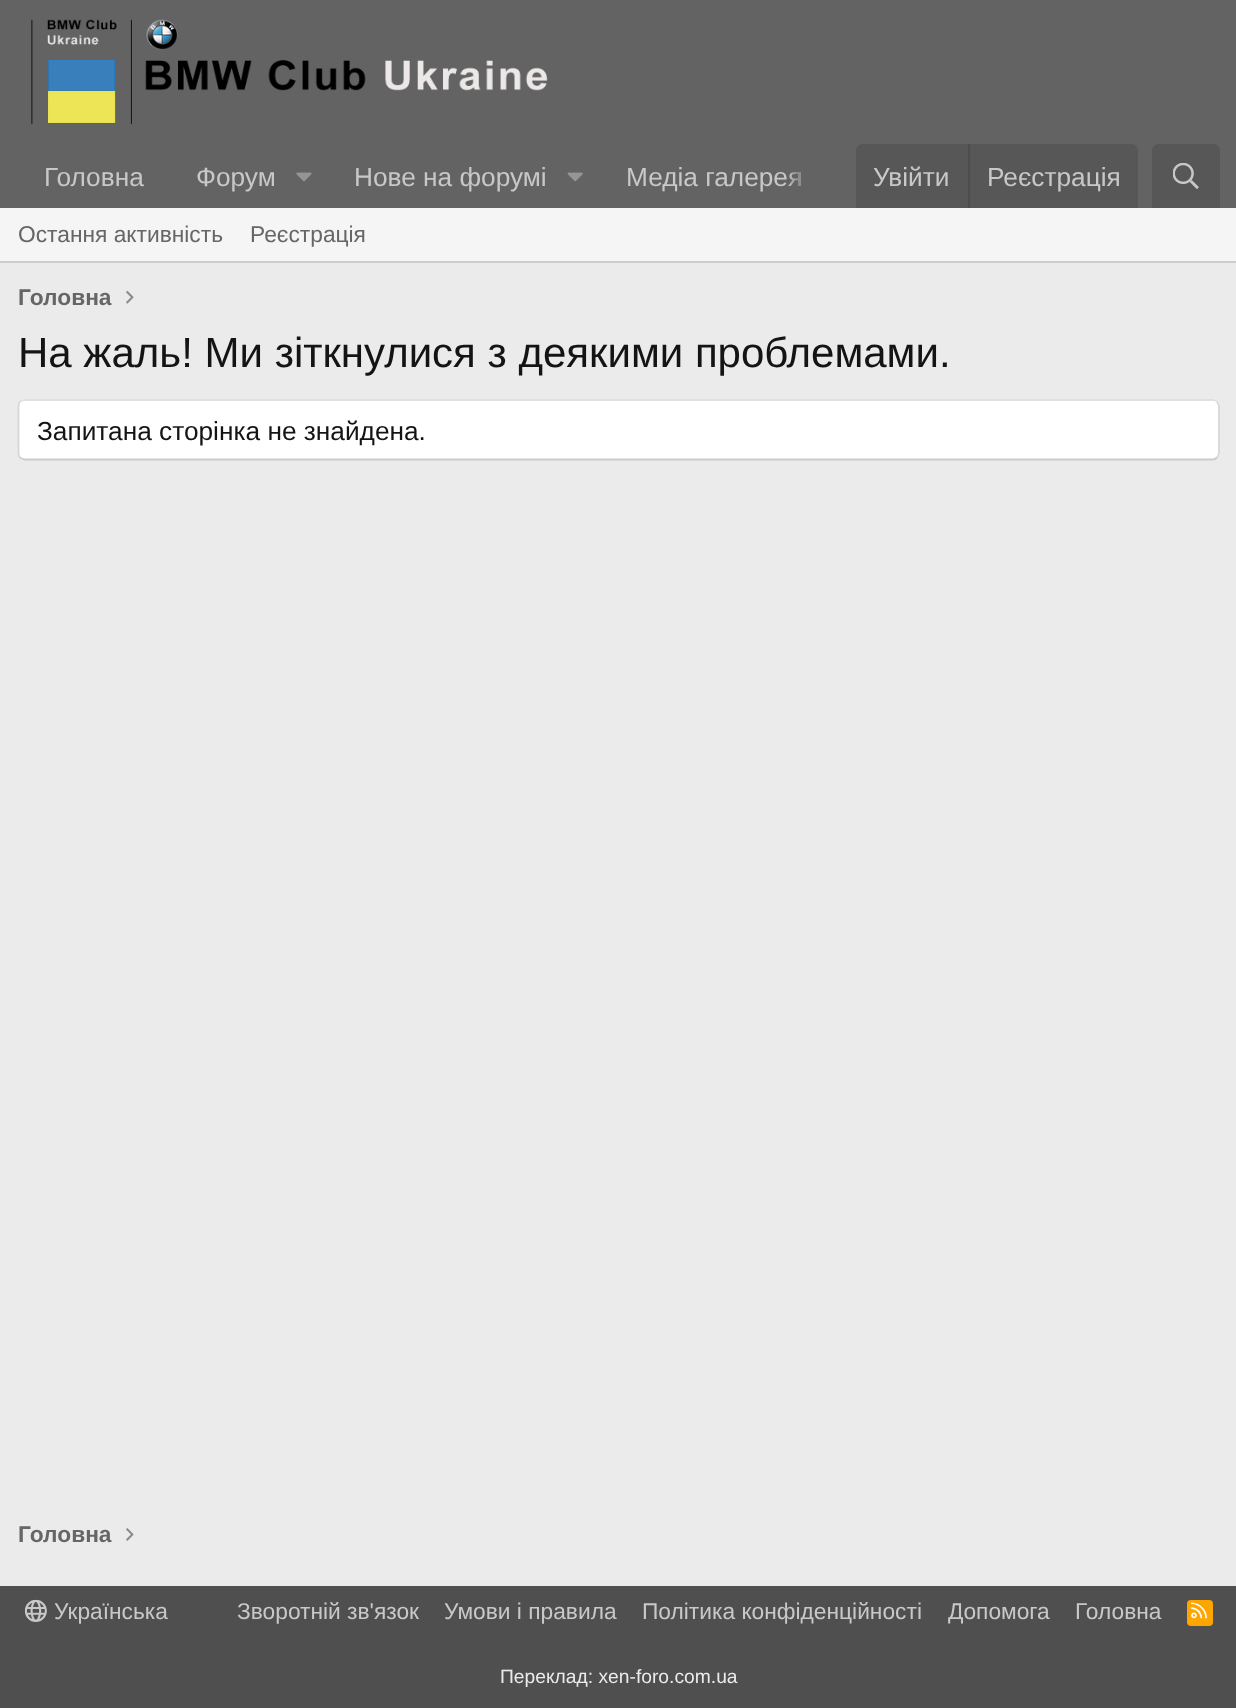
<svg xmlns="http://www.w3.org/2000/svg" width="1236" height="1708">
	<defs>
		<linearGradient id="g1" gradientUnits="userSpaceOnUse" x1="786" y1="176" x2="856" y2="176"><stop offset="0" stop-color="#636363" stop-opacity="0" /><stop offset="0.33" stop-color="#636363" /></linearGradient>
	</defs>
	<rect width="100%" height="100%" fill="#EBEBEB" />
	<rect x="0" y="0" width="1236" height="208" fill="#636363" />
	<image x="31" y="19" width="517" height="105" href="assets/img1.png" />
	<g font-family="Liberation Sans" font-size="26.25" fill="#C8C8C8">
		<text x="44" y="186">Головна</text>
		<text x="196" y="186">Форум</text>
	</g>
	<image x="296" y="172" width="16" height="10" href="assets/img2.png" />
	<text x="354" y="186" font-family="Liberation Sans" font-size="26.25" fill="#C8C8C8">Нове на форумі</text>
	<image x="567" y="172" width="16" height="10" href="assets/img3.png" />
	<text x="626" y="186" font-family="Liberation Sans" font-size="26.25" fill="#C8C8C8">Медіа галерея</text>
	<rect x="788" y="172" width="12" height="14" fill="url(#g1)" />
	<path d="M863 144H1131C1135 144 1138 147 1138 151V208H856V151C856 147 859 144 863 144Z" fill="#575757" />
	<text x="873" y="186" font-family="Liberation Sans" font-size="26.25" fill="#C8C8C8">Увійти</text>
	<rect x="968" y="144" width="2" height="64" fill="#4D4D4D" />
	<text x="987" y="186" font-family="Liberation Sans" font-size="26.25" fill="#C8C8C8">Реєстрація</text>
	<path d="M1159 144H1213C1217 144 1220 147 1220 151V208H1152V151C1152 147 1155 144 1159 144Z" fill="#575757" />
	<image x="1173" y="163" width="26" height="26" href="assets/img4.png" />
	<rect x="0" y="208" width="1236" height="53" fill="#F5F5F5" />
	<rect x="0" y="261" width="1236" height="2" fill="#CCCCCC" />
	<g font-family="Liberation Sans" font-size="22.75" fill="#676666">
		<text x="18" y="242">Остання активність</text>
		<text x="250" y="242">Реєстрація</text>
	</g>
	<text x="18" y="305" font-family="Liberation Sans" font-size="22.75" font-weight="700" fill="#676666">Головна</text>
	<image x="126" y="290" width="8" height="14" href="assets/img5.png" />
	<text x="18" y="367" font-family="Liberation Sans" font-size="42" fill="#141414">На жаль! Ми зіткнулися з деякими проблемами.</text>
	<rect x="18" y="399" width="1202" height="61" rx="7" fill="#FFFFFF" />
	<path d="M20 401.5C21.5 400.5 23 400 24.5 400H1213C1214.5 400 1216 400.5 1217 401.5" fill="none" stroke="#E0E0E0" stroke-width="1.8" />
	<path d="M1217 401.5C1218 403 1219 404.5 1219 406V453C1219 455 1218 456.5 1217 457.5" fill="none" stroke="#D6D6D6" stroke-width="1.8" />
	<path d="M1217 457.5C1216 458.5 1214.5 459.5 1213 459.5H24.5C23 459.5 21.5 458.5 20 457.5" fill="none" stroke="#CCCCCC" stroke-width="1.8" />
	<path d="M20 457.5C19 456.5 18.5 455 18.5 453V406C18.5 404.5 19 403 20 401.5" fill="none" stroke="#D6D6D6" stroke-width="1.8" />
	<text x="37" y="440" font-family="Liberation Sans" font-size="26.25" fill="#141414">Запитана сторінка не знайдена.</text>
	<text x="18" y="1542" font-family="Liberation Sans" font-size="22.75" font-weight="700" fill="#676666">Головна</text>
	<image x="126" y="1528" width="8" height="13" href="assets/img6.png" />
	<rect x="0" y="1586" width="1236" height="122" fill="#4F4F4F" />
	<image x="24" y="1599" width="23" height="23" href="assets/img7.png" />
	<g font-family="Liberation Sans" font-size="22.75" fill="#C8C8C8">
		<text x="54" y="1619">Українська</text>
		<text x="237" y="1619">Зворотній зв'язок</text>
		<text x="444" y="1619">Умови і правила</text>
		<text x="642" y="1619">Політика конфіденційності</text>
		<text x="948" y="1619">Дoпoмoга</text>
		<text x="1075" y="1619">Головна</text>
	</g>
	<rect x="1187" y="1600" width="26" height="26" rx="4" fill="#FFA500" />
	<image x="1191" y="1602" width="16" height="17" href="assets/img8.png" />
	<text x="500" y="1683" font-family="Liberation Sans" font-size="19.25" fill="#EBEBEB">Переклад: xen-foro.com.ua</text>
</svg>
